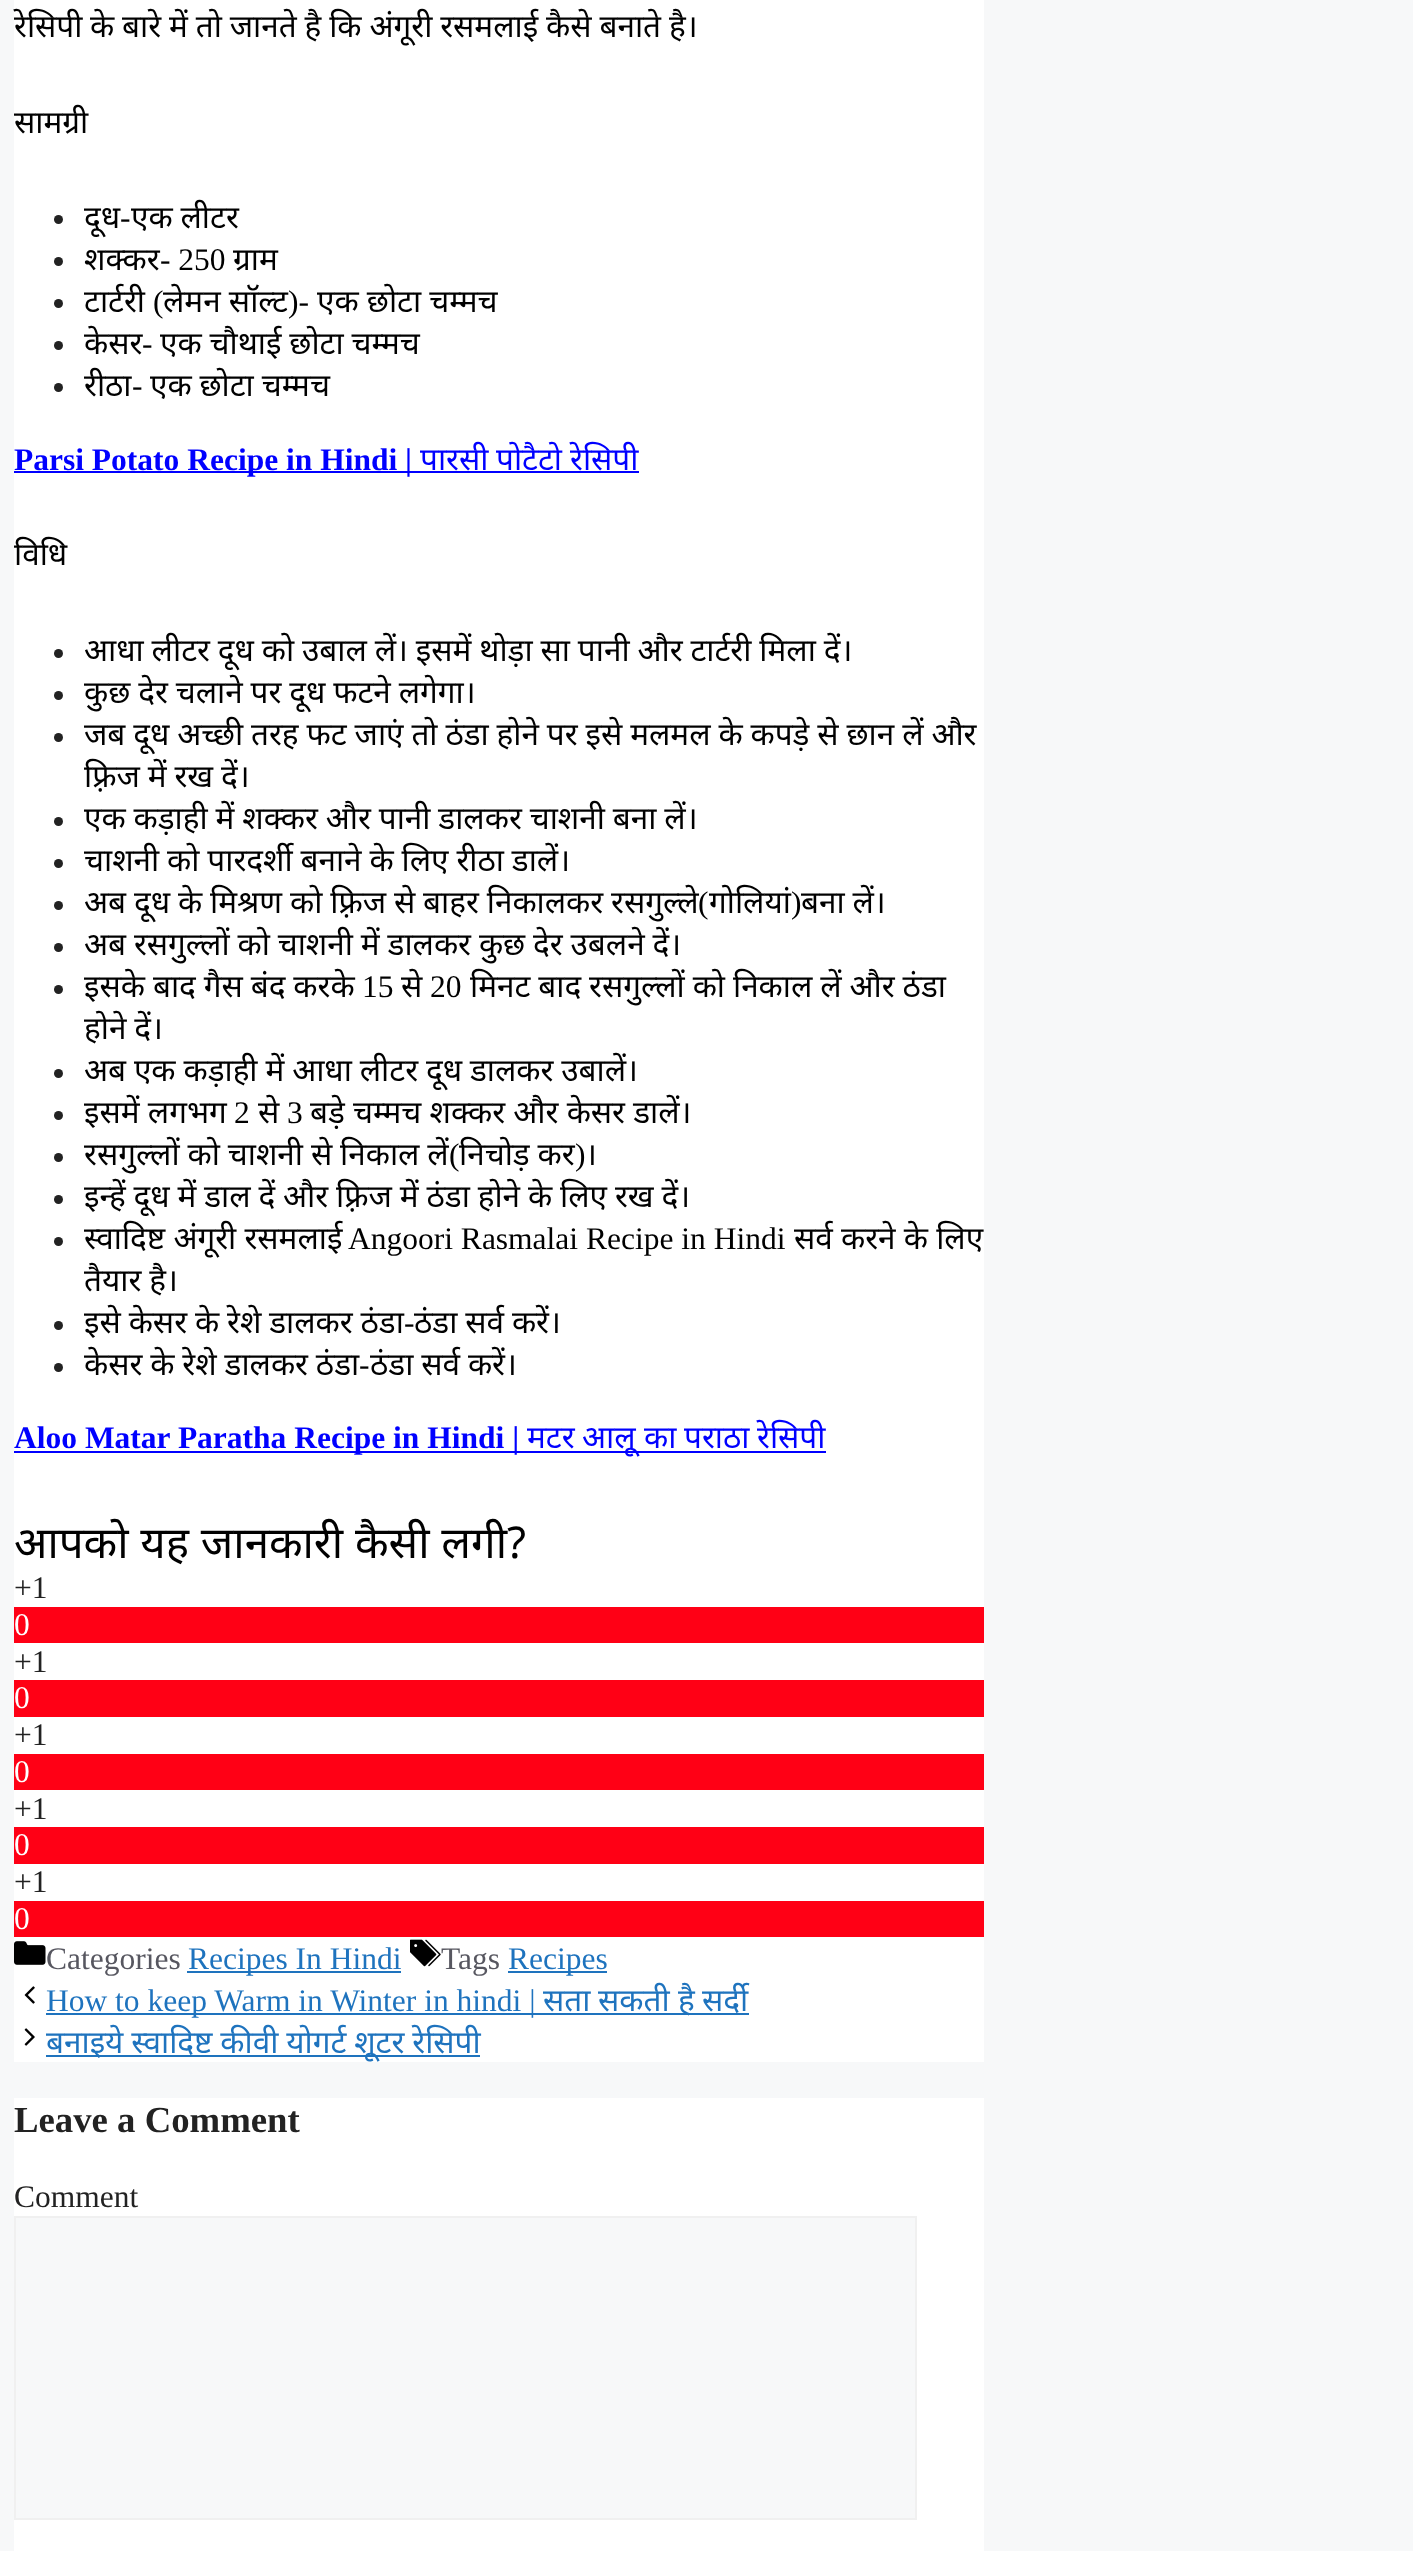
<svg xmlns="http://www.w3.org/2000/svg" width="1413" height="2551">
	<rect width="100%" height="100%" fill="#F7F8F9" />
	<rect x="14" y="0" width="970" height="2062" fill="#FFFFFF" />
	<g font-family="Noto Sans" font-size="31.5" fill="#000000">
		<text x="14" y="37">रेसिपी</text>
		<text x="90" y="37" word-spacing="-0.3">के बारे में तो जानते है कि अंगूरी रसमलाई कैसे बनाते है।</text>
		<text x="14" y="133">सामग्री</text>
	</g>
	<circle cx="58.5" cy="219.5" r="4.5" fill="#222222" />
	<text x="84" y="228" font-family="Noto Sans" font-size="31.5" fill="#000000">दूध</text>
	<text x="120" y="228" font-family="Liberation Serif" font-size="31.5" fill="#000000">-</text>
	<text x="131" y="228" word-spacing="-0.3" font-family="Noto Sans" font-size="31.5" fill="#000000">एक लीटर</text>
	<circle cx="58.5" cy="261.5" r="4.5" fill="#222222" />
	<text x="84" y="270" font-family="Noto Sans" font-size="31.5" fill="#000000">शक्कर</text>
	<text x="160" y="270" font-family="Liberation Serif" font-size="31.5" fill="#000000">- 250</text>
	<g font-family="Noto Sans" font-size="31.5" fill="#000000">
		<text x="233" y="270">ग्राम</text>
		<text x="84" y="312">टार्टरी</text>
	</g>
	<text x="153" y="312" font-family="Liberation Serif" font-size="31.5" fill="#000000">(</text>
	<g font-family="Noto Sans" font-size="31.5" fill="#000000">
		<text x="163" y="312">लेमन सॉल्ट</text>
		<text x="317" y="312">एक छोटा चम्मच</text>
	</g>
	<circle cx="58.5" cy="303.5" r="4.5" fill="#222222" />
	<text x="288" y="312" font-family="Liberation Serif" font-size="31.5" fill="#000000">)-</text>
	<circle cx="58.5" cy="345.5" r="4.5" fill="#222222" />
	<text x="84" y="354" font-family="Noto Sans" font-size="31.5" fill="#000000">केसर</text>
	<text x="142" y="354" font-family="Liberation Serif" font-size="31.5" fill="#000000">-</text>
	<text x="160" y="354" word-spacing="-0.3" font-family="Noto Sans" font-size="31.5" fill="#000000">एक चौथाई छोटा चम्मच</text>
	<circle cx="58.5" cy="387.5" r="4.5" fill="#222222" />
	<text x="84" y="396" font-family="Noto Sans" font-size="31.5" fill="#000000">रीठा</text>
	<text x="132" y="396" font-family="Liberation Serif" font-size="31.5" fill="#000000">-</text>
	<text x="150" y="396" word-spacing="-0.3" font-family="Noto Sans" font-size="31.5" fill="#000000">एक छोटा चम्मच</text>
	<rect x="14" y="471" width="625" height="2" fill="#0000FF" />
	<text x="14" y="470" font-family="Liberation Serif" font-size="31.5" font-weight="700" fill="#0000FF">Parsi Potato Recipe in Hindi |</text>
	<g font-family="Noto Sans" font-size="31.5" fill="#0000FF">
		<text x="420" y="470">पारसी</text>
		<text x="496" y="470">पोटैटो</text>
		<text x="570" y="470">रेसिपी</text>
	</g>
	<text x="14" y="565" font-family="Noto Sans" font-size="31.5" fill="#000000">विधि</text>
	<circle cx="58.5" cy="653.5" r="4.5" fill="#222222" />
	<text x="84" y="661" word-spacing="-0.3" font-family="Noto Sans" font-size="31.5" fill="#000000">आधा लीटर दूध को उबाल लें। इसमें थोड़ा सा पानी और टार्टरी मिला दें।</text>
	<circle cx="58.5" cy="695.5" r="4.5" fill="#222222" />
	<text x="84" y="703" word-spacing="-0.3" font-family="Noto Sans" font-size="31.5" fill="#000000">कुछ देर चलाने पर दूध फटने लगेगा।</text>
	<circle cx="58.5" cy="737.5" r="4.5" fill="#222222" />
	<g font-family="Noto Sans" font-size="31.5" fill="#000000">
		<text x="84" y="745" word-spacing="-0.3">जब दूध अच्छी तरह फट जाएं तो ठंडा होने पर इसे मलमल के कपड़े से छान लें और</text>
		<text x="84" y="787" word-spacing="-0.3">फ़्रिज में रख दें।</text>
	</g>
	<circle cx="58.5" cy="821.5" r="4.5" fill="#222222" />
	<text x="84" y="829" word-spacing="-0.3" font-family="Noto Sans" font-size="31.5" fill="#000000">एक कड़ाही में शक्कर और पानी डालकर चाशनी बना लें।</text>
	<circle cx="58.5" cy="863.5" r="4.5" fill="#222222" />
	<g font-family="Noto Sans" font-size="31.5" fill="#000000">
		<text x="84" y="871" word-spacing="-0.3">चाशनी को पारदर्शी बनाने के लिए रीठा डालें।</text>
		<text x="84" y="913" word-spacing="-0.3">अब दूध के मिश्रण को फ़्रिज से बाहर निकालकर रसगुल्ले</text>
	</g>
	<text x="698" y="913" font-family="Liberation Serif" font-size="31.5" fill="#000000">(</text>
	<g font-family="Noto Sans" font-size="31.5" fill="#000000">
		<text x="709" y="913">गोलियां</text>
		<text x="801" y="913" word-spacing="-0.3">बना लें।</text>
	</g>
	<circle cx="58.5" cy="905.5" r="4.5" fill="#222222" />
	<text x="791" y="913" font-family="Liberation Serif" font-size="31.5" fill="#000000">)</text>
	<circle cx="58.5" cy="947.5" r="4.5" fill="#222222" />
	<text x="84" y="955" word-spacing="-0.3" font-family="Noto Sans" font-size="31.5" fill="#000000">अब रसगुल्लों को चाशनी में डालकर कुछ देर उबलने दें।</text>
	<circle cx="58.5" cy="989.5" r="4.5" fill="#222222" />
	<text x="84" y="997" word-spacing="-0.25" font-family="Noto Sans" font-size="31.5" fill="#000000">इसके बाद गैस बंद करके</text>
	<text x="362" y="997" font-family="Liberation Serif" font-size="31.5" fill="#000000">15</text>
	<text x="401" y="997" font-family="Noto Sans" font-size="31.5" fill="#000000">से</text>
	<text x="430" y="997" font-family="Liberation Serif" font-size="31.5" fill="#000000">20</text>
	<g font-family="Noto Sans" font-size="31.5" fill="#000000">
		<text x="470" y="997" word-spacing="-0.25">मिनट बाद रसगुल्लों को निकाल लें और ठंडा</text>
		<text x="84" y="1039" word-spacing="-0.3">होने दें।</text>
	</g>
	<circle cx="58.5" cy="1073.5" r="4.5" fill="#222222" />
	<text x="84" y="1081" word-spacing="-0.3" font-family="Noto Sans" font-size="31.5" fill="#000000">अब एक कड़ाही में आधा लीटर दूध डालकर उबालें।</text>
	<circle cx="58.5" cy="1115.5" r="4.5" fill="#222222" />
	<text x="84" y="1123" font-family="Noto Sans" font-size="31.5" fill="#000000">इसमें लगभग</text>
	<text x="234" y="1123" font-family="Liberation Serif" font-size="31.5" fill="#000000">2</text>
	<text x="258" y="1123" font-family="Noto Sans" font-size="31.5" fill="#000000">से</text>
	<text x="287" y="1123" font-family="Liberation Serif" font-size="31.5" fill="#000000">3</text>
	<text x="310" y="1123" font-family="Noto Sans" font-size="31.5" fill="#000000">बड़े चम्मच शक्कर और केसर डालें।</text>
	<circle cx="58.5" cy="1157.5" r="4.5" fill="#222222" />
	<text x="84" y="1165" word-spacing="-0.3" font-family="Noto Sans" font-size="31.5" fill="#000000">रसगुल्लों को चाशनी से निकाल लें</text>
	<text x="449" y="1165" font-family="Liberation Serif" font-size="31.5" fill="#000000">(</text>
	<text x="459" y="1165" word-spacing="-0.3" font-family="Noto Sans" font-size="31.5" fill="#000000">निचोड़ कर</text>
	<text x="575" y="1165" font-family="Liberation Serif" font-size="31.5" fill="#000000">)</text>
	<text x="585" y="1165" font-family="Noto Sans" font-size="31.5" fill="#000000">।</text>
	<circle cx="58.5" cy="1199.5" r="4.5" fill="#222222" />
	<text x="84" y="1207" word-spacing="-0.3" font-family="Noto Sans" font-size="31.5" fill="#000000">इन्हें दूध में डाल दें और फ़्रिज में ठंडा होने के लिए रख दें।</text>
	<circle cx="58.5" cy="1241.5" r="4.5" fill="#222222" />
	<text x="84" y="1249" font-family="Noto Sans" font-size="31.5" fill="#000000">स्वादिष्ट अंगूरी रसमलाई</text>
	<text x="348" y="1249" font-family="Liberation Serif" font-size="31.5" fill="#000000">Angoori Rasmalai Recipe in Hindi</text>
	<g font-family="Noto Sans" font-size="31.5" fill="#000000">
		<text x="794" y="1249">सर्व करने के लिए</text>
		<text x="84" y="1291" word-spacing="-0.3">तैयार है।</text>
	</g>
	<circle cx="58.5" cy="1325.5" r="4.5" fill="#222222" />
	<text x="84" y="1333" word-spacing="-0.3" font-family="Noto Sans" font-size="31.5" fill="#000000">इसे केसर के रेशे डालकर ठंडा</text>
	<text x="404" y="1333" font-family="Liberation Serif" font-size="31.5" fill="#000000">-</text>
	<text x="414" y="1333" word-spacing="-0.3" font-family="Noto Sans" font-size="31.5" fill="#000000">ठंडा सर्व करें।</text>
	<circle cx="58.5" cy="1367.5" r="4.5" fill="#222222" />
	<text x="84" y="1375" word-spacing="-0.3" font-family="Noto Sans" font-size="31.5" fill="#000000">केसर के रेशे डालकर ठंडा</text>
	<text x="359" y="1375" font-family="Liberation Serif" font-size="31.5" fill="#000000">-</text>
	<text x="370" y="1375" word-spacing="-0.3" font-family="Noto Sans" font-size="31.5" fill="#000000">ठंडा सर्व करें।</text>
	<rect x="14" y="1451" width="812" height="2" fill="#0000FF" />
	<text x="14" y="1448" font-family="Liberation Serif" font-size="31.5" font-weight="700" fill="#0000FF">Aloo Matar Paratha Recipe in Hindi |</text>
	<g font-family="Noto Sans" font-size="31.5" fill="#0000FF">
		<text x="527" y="1448">मटर</text>
		<text x="582" y="1448">आलू</text>
		<text x="644" y="1448">का</text>
		<text x="684" y="1448">पराठा</text>
		<text x="757" y="1448">रेसिपी</text>
	</g>
	<text x="14" y="1558" word-spacing="0.5" font-family="Noto Sans" font-size="43.75" fill="#000000">आपको यह जानकारी कैसी लगी?</text>
	<text x="14" y="1598" font-family="Liberation Serif" font-size="31.5" fill="#222222">+1</text>
	<rect x="14" y="1607" width="970" height="36" fill="#FF0015" />
	<text x="14" y="1635" font-family="Liberation Serif" font-size="31.5" fill="#FFFFFF">0</text>
	<text x="14" y="1672" font-family="Liberation Serif" font-size="31.5" fill="#222222">+1</text>
	<rect x="14" y="1680" width="970" height="37" fill="#FF0015" />
	<text x="14" y="1708" font-family="Liberation Serif" font-size="31.5" fill="#FFFFFF">0</text>
	<text x="14" y="1745" font-family="Liberation Serif" font-size="31.5" fill="#222222">+1</text>
	<rect x="14" y="1754" width="970" height="36" fill="#FF0015" />
	<text x="14" y="1782" font-family="Liberation Serif" font-size="31.5" fill="#FFFFFF">0</text>
	<text x="14" y="1819" font-family="Liberation Serif" font-size="31.5" fill="#222222">+1</text>
	<rect x="14" y="1827" width="970" height="37" fill="#FF0015" />
	<text x="14" y="1855" font-family="Liberation Serif" font-size="31.5" fill="#FFFFFF">0</text>
	<text x="14" y="1892" font-family="Liberation Serif" font-size="31.5" fill="#222222">+1</text>
	<rect x="14" y="1901" width="970" height="36" fill="#FF0015" />
	<text x="14" y="1929" font-family="Liberation Serif" font-size="31.5" fill="#FFFFFF">0</text>
	<image x="14" y="1941" width="32" height="24" href="assets/img1.png" />
	<text x="46" y="1969" font-family="Liberation Serif" font-size="31.5" fill="#575760">Categories</text>
	<rect x="187" y="1971" width="214" height="2" fill="#1E73BE" />
	<text x="188" y="1969" font-family="Liberation Serif" font-size="31.5" fill="#1E73BE">Recipes In Hindi</text>
	<image x="410" y="1939" width="31" height="28" href="assets/img2.png" />
	<text x="441" y="1969" font-family="Liberation Serif" font-size="31.5" fill="#575760">Tags</text>
	<rect x="508" y="1971" width="99" height="2" fill="#1E73BE" />
	<text x="508" y="1969" font-family="Liberation Serif" font-size="31.5" fill="#1E73BE">Recipes</text>
	<image x="24" y="1986" width="11" height="18" href="assets/img3.png" />
	<rect x="46" y="2013" width="703" height="2" fill="#1E73BE" />
	<text x="46" y="2011" font-family="Liberation Serif" font-size="31.5" fill="#1E73BE">How to keep Warm in Winter in hindi |</text>
	<g font-family="Noto Sans" font-size="31.5" fill="#1E73BE">
		<text x="543" y="2011">सता</text>
		<text x="598" y="2011">सकती</text>
		<text x="678" y="2011">है</text>
		<text x="702" y="2011">सर्दी</text>
	</g>
	<image x="24" y="2028" width="11" height="18" href="assets/img4.png" />
	<rect x="46" y="2055" width="434" height="2" fill="#1E73BE" />
	<text x="46" y="2053" word-spacing="-0.3" font-family="Noto Sans" font-size="31.5" fill="#1E73BE">बनाइये स्वादिष्ट कीवी योगर्ट शूटर रेसिपी</text>
	<rect x="14" y="2098" width="970" height="453" fill="#FFFFFF" />
	<text x="14" y="2132" font-family="Liberation Serif" font-size="36.75" font-weight="700" fill="#222222">Leave a Comment</text>
	<text x="14" y="2207" font-family="Liberation Serif" font-size="31.5" fill="#222222">Comment</text>
	<rect x="15" y="2217" width="901" height="302" fill="#F7F8F9" stroke="#F0F0F0" stroke-width="2" />
</svg>
